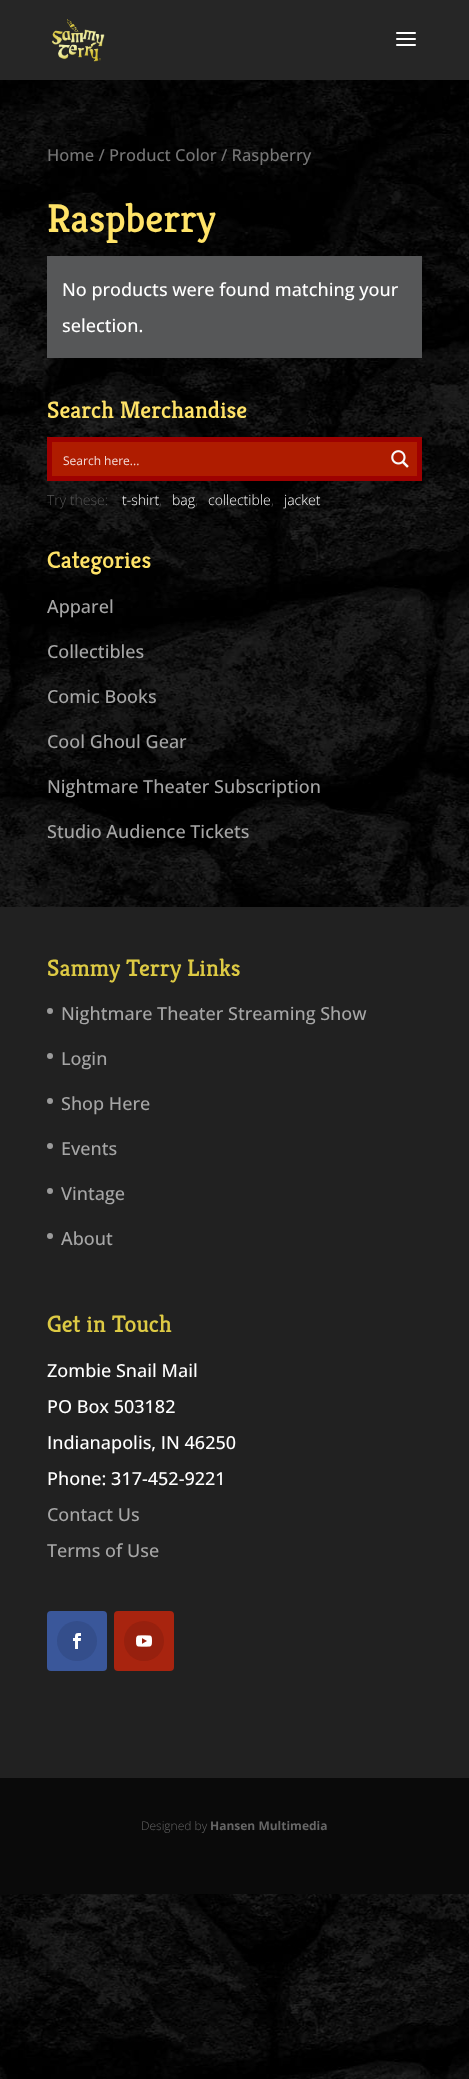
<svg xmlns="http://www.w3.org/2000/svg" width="469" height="2079">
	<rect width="100%" height="100%" fill="#FFFFFF" />
	<image x="0" y="80" width="469" height="1999" href="assets/img1.png" />
	<rect x="0" y="0" width="469" height="80" fill="#262626" />
	<image x="51" y="19" width="54" height="43" href="assets/img2.png" />
	<image x="396" y="32" width="20" height="14" href="assets/img3.png" />
	<text x="47" y="161" font-family="Open Sans" font-size="16.5" font-weight="500" fill="#767676">Home / Product Color / Raspberry</text>
	<text x="47" y="232" font-family="Kreon" font-size="40" font-weight="500" fill="#FFE368">Raspberry</text>
	<rect x="47" y="256" width="375" height="102" fill="#565758" />
	<g font-family="Open Sans" font-size="18" font-weight="500" fill="#FFFFFF">
		<text x="62" y="296">No products were found matching your</text>
		<text x="62" y="332">selection.</text>
	</g>
	<text x="47" y="418" font-family="Kreon" font-size="24" font-weight="500" fill="#FFE368">Search Merchandise</text>
	<rect x="47" y="437" width="375" height="44" fill="#9E0101" />
	<rect x="52" y="442" width="365" height="34" fill="#AF1C00" />
	<text x="63" y="465" font-family="Open Sans" font-size="12" fill="#F3DDD9">Search here...</text>
	<image x="391" y="450" width="18" height="18" href="assets/img4.png" />
	<text x="47" y="505" font-family="Open Sans" font-size="14" font-weight="300" fill="#555555">Try these:</text>
	<text x="122" y="505" font-family="Open Sans" font-size="14" font-weight="300" fill="#FFFFFF">t-shirt</text>
	<text x="159" y="505" font-family="Open Sans" font-size="14" font-weight="300" fill="#555555">,</text>
	<text x="172" y="505" font-family="Open Sans" font-size="14" font-weight="300" fill="#FFFFFF">bag</text>
	<text x="195" y="505" font-family="Open Sans" font-size="14" font-weight="300" fill="#555555">,</text>
	<text x="208" y="505" font-family="Open Sans" font-size="14" font-weight="300" fill="#FFFFFF">collectible</text>
	<text x="271" y="505" font-family="Open Sans" font-size="14" font-weight="300" fill="#555555">,</text>
	<text x="284" y="505" font-family="Open Sans" font-size="14" font-weight="300" fill="#FFFFFF">jacket</text>
	<text x="47" y="568" font-family="Kreon" font-size="24" font-weight="500" fill="#FFE368">Categories</text>
	<g font-family="Open Sans" font-size="18" font-weight="500" fill="#A6A6A6">
		<text x="47" y="613">Apparel</text>
		<text x="47" y="658">Collectibles</text>
		<text x="47" y="703">Comic Books</text>
		<text x="47" y="748">Cool Ghoul Gear</text>
		<text x="47" y="793">Nightmare Theater Subscription</text>
		<text x="47" y="838">Studio Audience Tickets</text>
	</g>
	<rect x="0" y="907" width="469" height="871" fill="#212121" />
	<text x="47" y="976" font-family="Kreon" font-size="24" font-weight="500" fill="#DDCA44">Sammy Terry Links</text>
	<circle cx="50" cy="1011" r="3" fill="#9B9B9B" />
	<text x="61" y="1020" font-family="Open Sans" font-size="18" font-weight="500" fill="#A6A6A6">Nightmare Theater Streaming Show</text>
	<circle cx="50" cy="1056" r="3" fill="#9B9B9B" />
	<text x="61" y="1065" font-family="Open Sans" font-size="18" font-weight="500" fill="#A6A6A6">Login</text>
	<circle cx="50" cy="1101" r="3" fill="#9B9B9B" />
	<text x="61" y="1110" font-family="Open Sans" font-size="18" font-weight="500" fill="#A6A6A6">Shop Here</text>
	<circle cx="50" cy="1146" r="3" fill="#9B9B9B" />
	<text x="61" y="1155" font-family="Open Sans" font-size="18" font-weight="500" fill="#A6A6A6">Events</text>
	<circle cx="50" cy="1191" r="3" fill="#9B9B9B" />
	<text x="61" y="1200" font-family="Open Sans" font-size="18" font-weight="500" fill="#A6A6A6">Vintage</text>
	<circle cx="50" cy="1236" r="3" fill="#9B9B9B" />
	<text x="61" y="1245" font-family="Open Sans" font-size="18" font-weight="500" fill="#A6A6A6">About</text>
	<text x="47" y="1332" font-family="Kreon" font-size="24" font-weight="500" fill="#DDCA44">Get in Touch</text>
	<g font-family="Open Sans" font-size="18" font-weight="500" fill="#FFFFFF">
		<text x="47" y="1377">Zombie Snail Mail</text>
		<text x="47" y="1413">PO Box 503182</text>
		<text x="47" y="1449">Indianapolis, IN 46250</text>
		<text x="47" y="1485">Phone: 317-452-9221</text>
	</g>
	<g font-family="Open Sans" font-size="18" font-weight="500" fill="#A6A6A6">
		<text x="47" y="1521">Contact Us</text>
		<text x="47" y="1557">Terms of Use</text>
	</g>
	<rect x="47" y="1611" width="60" height="60" rx="4" fill="#3A579A" />
	<circle cx="77" cy="1641" r="20" fill="#344E8B" />
	<image x="73" y="1633" width="8" height="16" href="assets/img5.png" />
	<rect x="114" y="1611" width="60" height="60" rx="4" fill="#A8240F" />
	<circle cx="144" cy="1641" r="20" fill="#97200E" />
	<image x="136" y="1635" width="16" height="12" href="assets/img6.png" />
	<rect x="0" y="1778" width="469" height="116" fill="#0A0A0A" />
	<text x="141" y="1830" font-family="Open Sans" font-size="12" font-weight="300" fill="#666666">Designed by</text>
	<text x="210" y="1830" font-family="Open Sans" font-size="12" font-weight="700" fill="#666666">Hansen Multimedia</text>
</svg>
